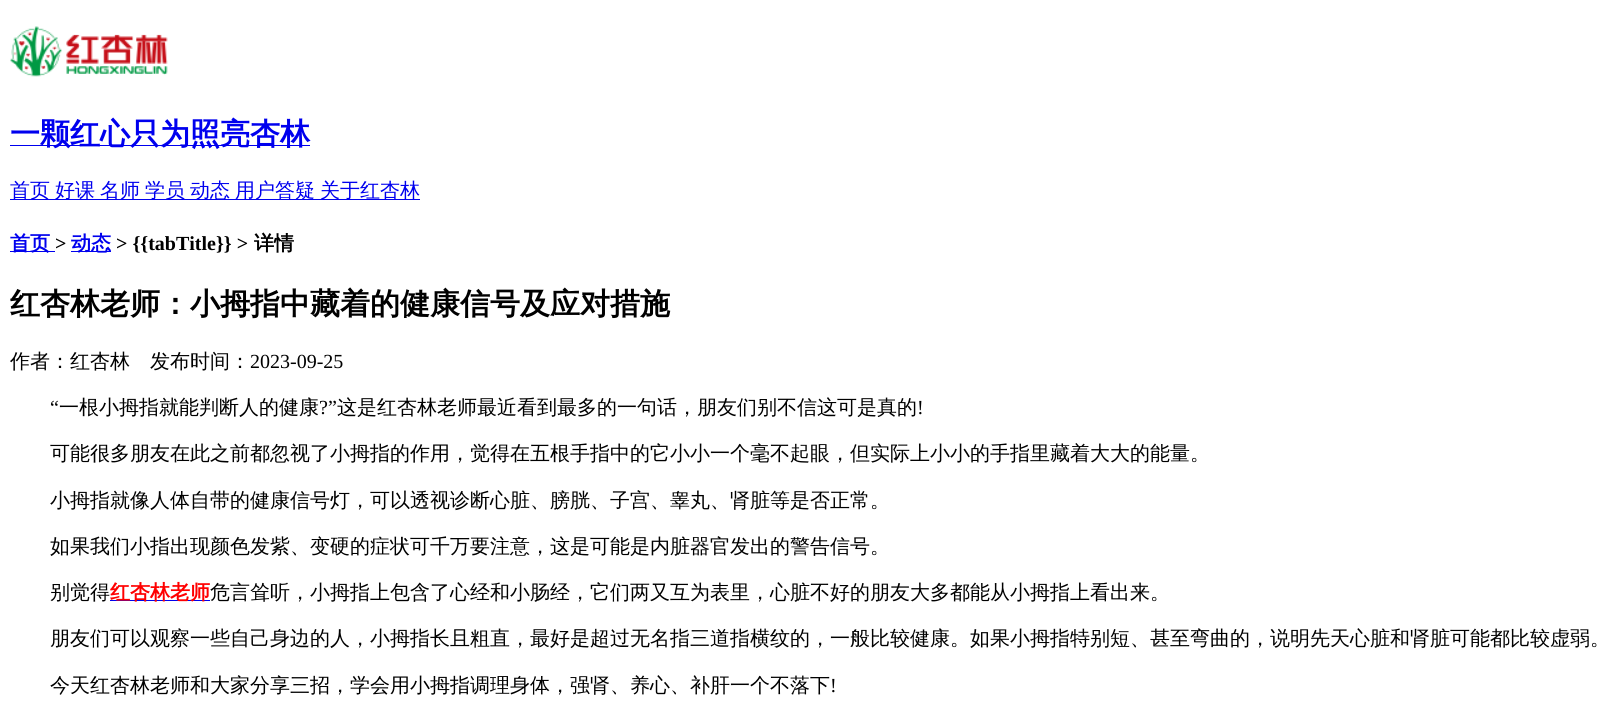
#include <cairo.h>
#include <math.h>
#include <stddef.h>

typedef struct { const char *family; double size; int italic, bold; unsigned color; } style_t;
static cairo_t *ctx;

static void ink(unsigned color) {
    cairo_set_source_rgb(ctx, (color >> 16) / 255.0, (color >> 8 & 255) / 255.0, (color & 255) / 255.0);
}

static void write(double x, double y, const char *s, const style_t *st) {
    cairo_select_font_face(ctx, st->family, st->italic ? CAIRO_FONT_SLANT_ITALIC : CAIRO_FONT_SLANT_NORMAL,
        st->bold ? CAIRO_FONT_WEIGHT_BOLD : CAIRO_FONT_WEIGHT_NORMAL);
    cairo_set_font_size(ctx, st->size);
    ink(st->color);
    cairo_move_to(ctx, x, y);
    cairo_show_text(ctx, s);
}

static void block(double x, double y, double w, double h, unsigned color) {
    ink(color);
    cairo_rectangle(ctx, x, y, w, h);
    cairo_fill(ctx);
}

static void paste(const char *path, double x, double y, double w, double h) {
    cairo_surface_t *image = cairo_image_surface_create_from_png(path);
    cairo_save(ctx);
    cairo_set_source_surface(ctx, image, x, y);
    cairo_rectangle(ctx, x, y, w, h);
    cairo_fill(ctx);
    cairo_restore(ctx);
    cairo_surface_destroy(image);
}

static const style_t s1 = {"WenQuanYi Zen Hei", 30, 0, 1, 0x0000ee};
static const style_t s2 = {"WenQuanYi Zen Hei Medium", 20, 0, 0, 0x0000ee};
static const style_t s3 = {"WenQuanYi Zen Hei", 20, 0, 1, 0x0000ee};
static const style_t s4 = {"Liberation Serif", 20, 0, 1, 0x000000};
static const style_t s5 = {"WenQuanYi Zen Hei", 20, 0, 1, 0x000000};
static const style_t s6 = {"WenQuanYi Zen Hei", 30, 0, 1, 0x000000};
static const style_t s7 = {"WenQuanYi Zen Hei Medium", 20, 0, 0, 0x000000};
static const style_t s8 = {"Liberation Serif", 20, 0, 0, 0x000000};
static const style_t s9 = {"WenQuanYi Zen Hei", 20, 0, 1, 0xff0000};

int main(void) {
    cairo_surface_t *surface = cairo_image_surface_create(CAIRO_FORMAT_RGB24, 1619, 715);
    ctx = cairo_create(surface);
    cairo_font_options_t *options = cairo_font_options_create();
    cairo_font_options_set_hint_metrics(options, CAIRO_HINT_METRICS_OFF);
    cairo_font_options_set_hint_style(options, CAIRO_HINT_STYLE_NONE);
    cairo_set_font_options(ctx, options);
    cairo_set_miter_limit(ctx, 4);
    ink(0xffffff);
    cairo_paint(ctx);
    paste("pic1.png", 10, 26, 158, 51);
    block(10, 145, 300, 1, 0x0000ee);
    write(10, 144, "一颗红心只为照亮杏林", &s1);
    block(10, 199, 410, 1, 0x0000ee);
    write(10, 197, "首页", &s2);
    write(55, 197, "好课", &s2);
    write(100, 197, "名师", &s2);
    write(145, 197, "学员", &s2);
    write(190, 197, "动态", &s2);
    write(235, 197, "用户答疑", &s2);
    write(320, 197, "关于红杏林", &s2);
    block(10, 251, 45, 1, 0x0000ee);
    write(10, 250, "首页", &s3);
    write(55, 250, ">", &s4);
    block(71, 251, 40, 1, 0x0000ee);
    write(71, 250, "动态", &s3);
    write(116, 250, "> {{tabTitle}} >", &s4);
    write(254, 250, "详情", &s5);
    write(10, 314, "红杏林老师：小拇指中藏着的健康信号及应对措施", &s6);
    write(10, 368, "作者：红杏林", &s7);
    write(150, 368, "发布时间：", &s7);
    write(250, 368, "2023-09-25", &s8);
    write(50, 414, "“", &s8);
    write(59, 414, "一根小拇指就能判断人的健康", &s7);
    write(319, 414, "?”", &s8);
    write(337, 414, "这是红杏林老师最近看到最多的一句话，朋友们别不信这可是真的", &s7);
    write(917, 414, "!", &s8);
    write(50, 460, "可能很多朋友在此之前都忽视了小拇指的作用，觉得在五根手指中的它小小一个毫不起眼，但实际上小小的手指里藏着大大的能量。", &s7);
    write(50, 507, "小拇指就像人体自带的健康信号灯，可以透视诊断心脏、膀胱、子宫、睾丸、肾脏等是否正常。", &s7);
    write(50, 553, "如果我们小指出现颜色发紫、变硬的症状可千万要注意，这是可能是内脏器官发出的警告信号。", &s7);
    write(50, 599, "别觉得", &s7);
    block(110, 600, 100, 1, 0x0000ee);
    write(110, 599, "红杏林老师", &s9);
    write(210, 599, "危言耸听，小拇指上包含了心经和小肠经，它们两又互为表里，心脏不好的朋友大多都能从小拇指上看出来。", &s7);
    write(50, 645, "朋友们可以观察一些自己身边的人，小拇指长且粗直，最好是超过无名指三道指横纹的，一般比较健康。如果小拇指特别短、甚至弯曲的，说明先天心脏和肾脏可能都比较虚弱。", &s7);
    write(50, 692, "今天红杏林老师和大家分享三招，学会用小拇指调理身体，强肾、养心、补肝一个不落下", &s7);
    write(830, 692, "!", &s8);
    cairo_surface_write_to_png(surface, "screenshot.png");
    cairo_font_options_destroy(options);
    cairo_destroy(ctx);
    cairo_surface_destroy(surface);
    return 0;
}
